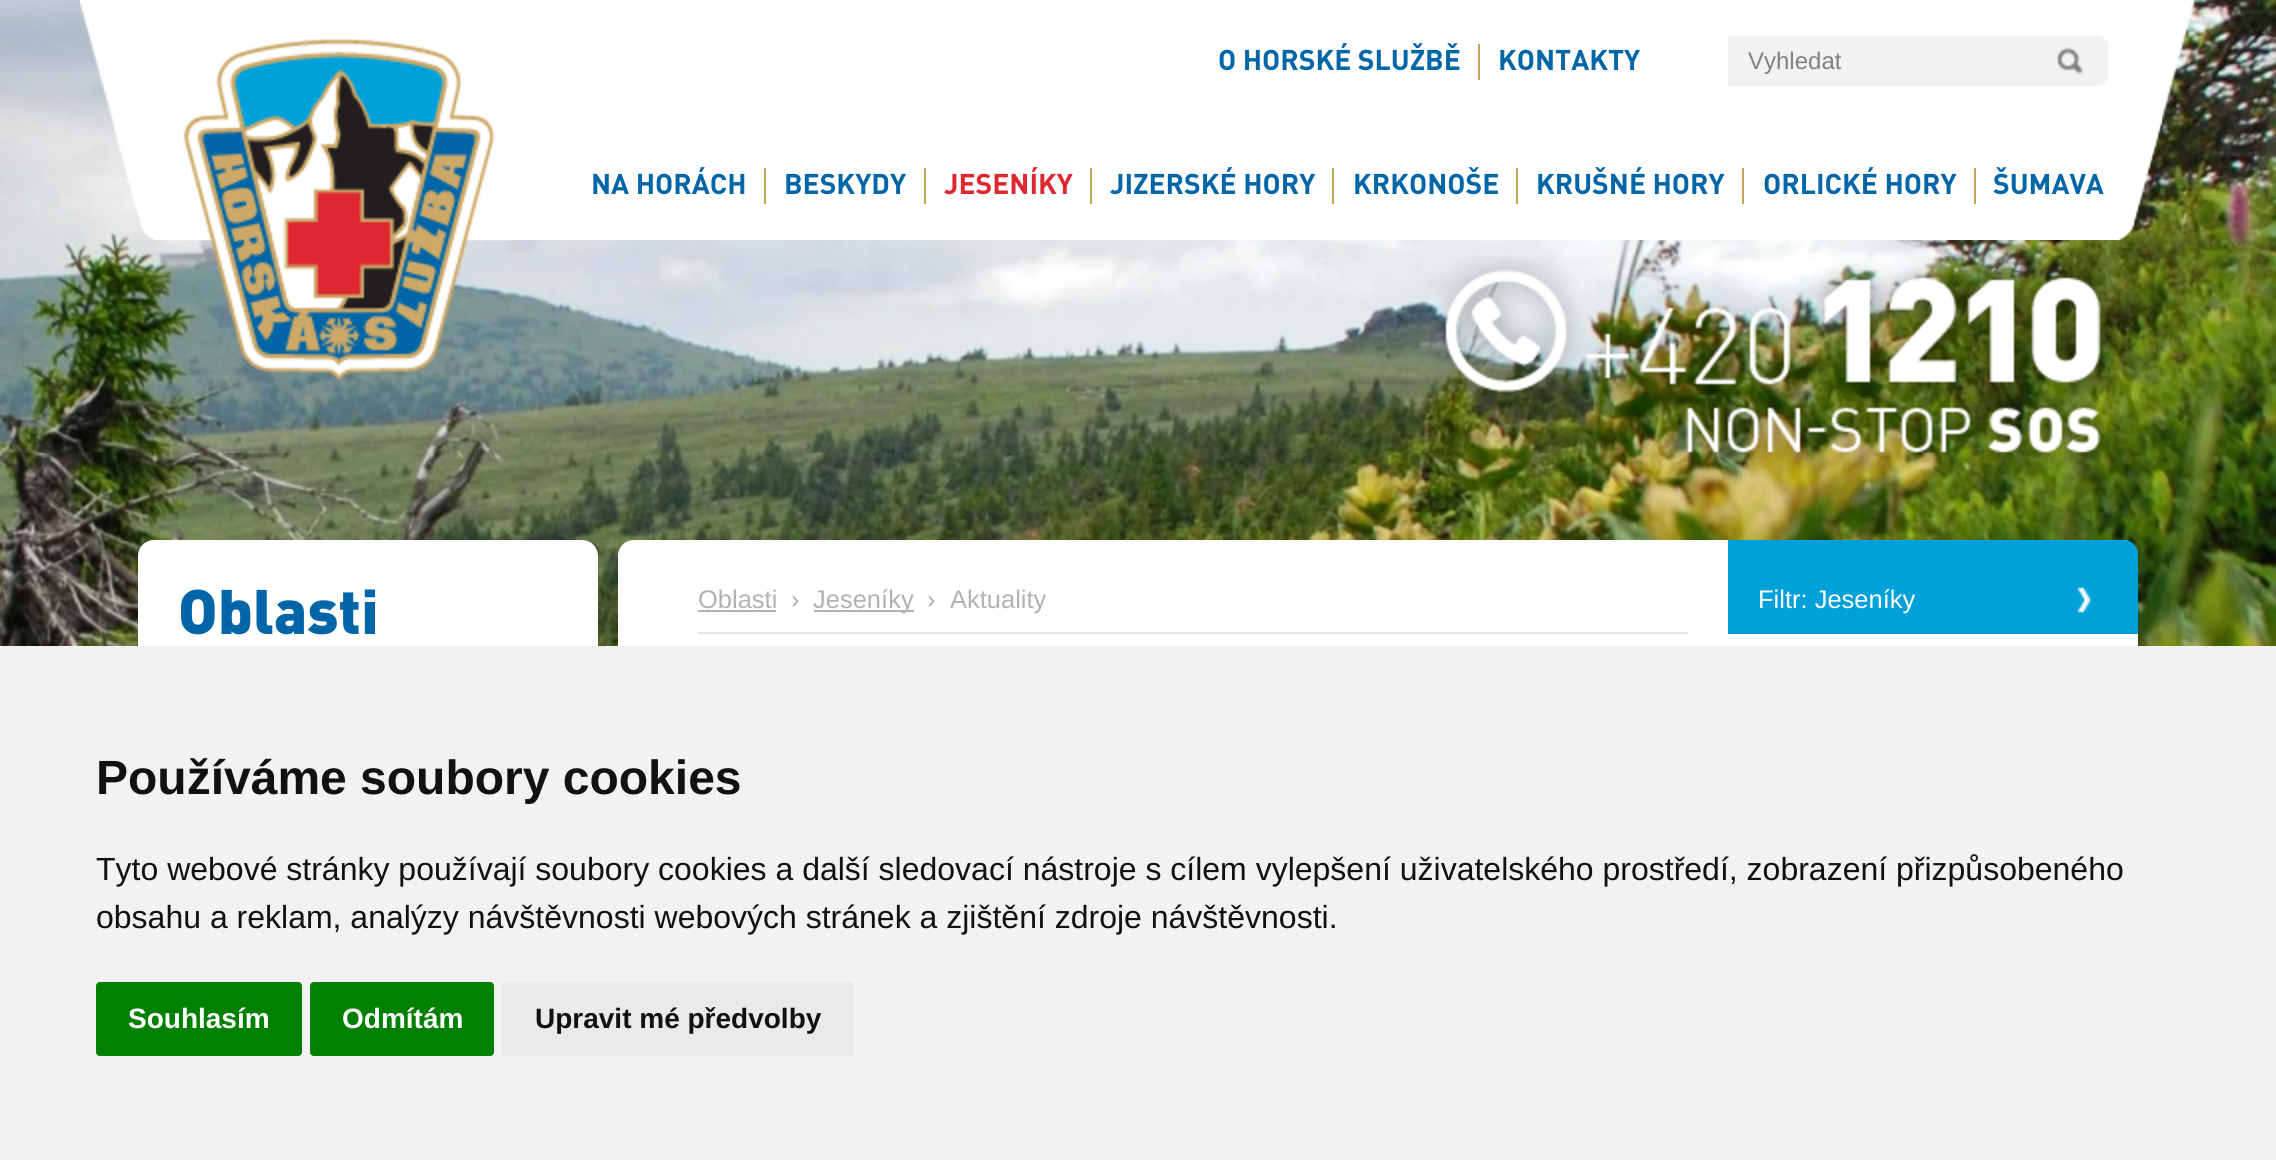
#include <cairo.h>
#include <math.h>
#include <stddef.h>

typedef struct { const char *family; double size; int italic, bold; unsigned color; } style_t;
static cairo_t *ctx;

static void ink(unsigned color) {
    cairo_set_source_rgb(ctx, (color >> 16) / 255.0, (color >> 8 & 255) / 255.0, (color & 255) / 255.0);
}

static void write(double x, double y, const char *s, const style_t *st) {
    cairo_select_font_face(ctx, st->family, st->italic ? CAIRO_FONT_SLANT_ITALIC : CAIRO_FONT_SLANT_NORMAL,
        st->bold ? CAIRO_FONT_WEIGHT_BOLD : CAIRO_FONT_WEIGHT_NORMAL);
    cairo_set_font_size(ctx, st->size);
    ink(st->color);
    cairo_move_to(ctx, x, y);
    cairo_show_text(ctx, s);
}

static void block(double x, double y, double w, double h, unsigned color) {
    ink(color);
    cairo_rectangle(ctx, x, y, w, h);
    cairo_fill(ctx);
}

static void round_path(double x, double y, double w, double h, double r) {
    cairo_new_sub_path(ctx);
    cairo_arc(ctx, x + w - r, y + h - r, r, 0, M_PI / 2);
    cairo_arc(ctx, x + r, y + h - r, r, M_PI / 2, M_PI);
    cairo_arc(ctx, x + r, y + r, r, M_PI, 1.5 * M_PI);
    cairo_arc(ctx, x + w - r, y + r, r, 1.5 * M_PI, 2 * M_PI);
    cairo_close_path(ctx);
}

static void paste(const char *path, double x, double y, double w, double h) {
    cairo_surface_t *image = cairo_image_surface_create_from_png(path);
    cairo_save(ctx);
    cairo_set_source_surface(ctx, image, x, y);
    cairo_rectangle(ctx, x, y, w, h);
    cairo_fill(ctx);
    cairo_restore(ctx);
    cairo_surface_destroy(image);
}

static const style_t s1 = {"DIN", 28.25, 0, 1, 0x0066a7};
static const style_t s2 = {"Liberation Sans", 24, 0, 0, 0x808080};
static const style_t s3 = {"DIN", 28.25, 0, 1, 0xde2730};
static const style_t s4 = {"DIN Black", 62, 0, 0, 0x0066a7};
static const style_t s5 = {"Liberation Sans", 25.5, 0, 0, 0xb2b2b2};
static const style_t s6 = {"Liberation Sans", 25.5, 0, 0, 0xffffff};
static const style_t s7 = {"Liberation Sans", 48, 0, 1, 0x111111};
static const style_t s8 = {"Liberation Sans", 32, 0, 0, 0x111111};
static const style_t s9 = {"Liberation Sans", 28, 0, 1, 0xffffff};
static const style_t s10 = {"Liberation Sans", 28, 0, 1, 0x111111};

int main(void) {
    cairo_surface_t *surface = cairo_image_surface_create(CAIRO_FORMAT_RGB24, 2276, 1160);
    ctx = cairo_create(surface);
    cairo_font_options_t *options = cairo_font_options_create();
    cairo_font_options_set_hint_metrics(options, CAIRO_HINT_METRICS_OFF);
    cairo_font_options_set_hint_style(options, CAIRO_HINT_STYLE_NONE);
    cairo_set_font_options(ctx, options);
    cairo_set_miter_limit(ctx, 4);
    ink(0xffffff);
    cairo_paint(ctx);
    paste("pic1.png", 0, 0, 2276, 646);
    paste("pic2.png", 80, 0, 2116, 240);
    paste("pic3.png", 114, 113, 2048, 127);
    paste("pic4.png", 164, 39, 350, 342);
    block(1478, 44, 2, 36, 0xc7a660);
    write(1218, 70, "O HORSKÉ SLUŽBĚ", &s1);
    write(1498, 70, "KONTAKTY", &s1);
    block(1728, 36, 320, 50, 0xf2f2f2);
    write(1748, 69, "Vyhledat", &s2);
    paste("pic5.png", 2048, 36, 60, 50);
    block(764, 168, 2, 36, 0xc7a660);
    write(591, 194, "NA HORÁCH", &s1);
    block(924, 168, 2, 36, 0xc7a660);
    write(784, 194, "BESKYDY", &s1);
    block(1090, 168, 2, 36, 0xc7a660);
    write(944, 194, "JESENÍKY", &s3);
    block(1332, 168, 2, 36, 0xc7a660);
    write(1110, 194, "JIZERSKÉ HORY", &s1);
    block(1516, 168, 2, 36, 0xc7a660);
    write(1353, 194, "KRKONOŠE", &s1);
    block(1742, 168, 2, 36, 0xc7a660);
    write(1536, 194, "KRUŠNÉ HORY", &s1);
    block(1974, 168, 2, 36, 0xc7a660);
    write(1763, 194, "ORLICKÉ HORY", &s1);
    write(1993, 194, "ŠUMAVA", &s1);
    paste("pic6.png", 1435, 256, 685, 214);
    ink(0xffffff);
    round_path(138, 540, 460, 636, 16);
    cairo_fill(ctx);
    write(178, 634, "Oblasti", &s4);
    ink(0xffffff);
    cairo_new_path(ctx);
    cairo_move_to(ctx, 634, 540);
    cairo_line_to(ctx, 2122, 540);
    cairo_curve_to(ctx, 2131, 540, 2138, 547, 2138, 556);
    cairo_line_to(ctx, 2138, 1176);
    cairo_line_to(ctx, 618, 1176);
    cairo_line_to(ctx, 618, 556);
    cairo_curve_to(ctx, 618, 547, 625, 540, 634, 540);
    cairo_close_path(ctx);
    cairo_fill(ctx);
    block(698, 632, 990, 2, 0xe5e5e5);
    write(698, 608, "Oblasti", &s5);
    block(698, 610, 78, 2, 0xb2b2b2);
    write(791, 608, "›", &s5);
    block(814, 610, 100, 2, 0xb2b2b2);
    write(813, 608, "Jeseníky", &s5);
    write(927, 608, "›", &s5);
    write(950, 608, "Aktuality", &s5);
    ink(0x00a1da);
    cairo_new_path(ctx);
    cairo_move_to(ctx, 1728, 540);
    cairo_line_to(ctx, 2124, 540);
    cairo_curve_to(ctx, 2131.5, 540, 2138, 546.5, 2138, 554);
    cairo_line_to(ctx, 2138, 636);
    cairo_line_to(ctx, 1728, 636);
    cairo_close_path(ctx);
    cairo_fill(ctx);
    paste("pic7.png", 2078, 587, 14, 26);
    block(1728, 634, 410, 2, 0xffffff);
    write(1758, 608, "Filtr: Jeseníky", &s6);
    block(0, 646, 2276, 514, 0xf2f2f2);
    write(96, 794, "Používáme soubory cookies", &s7);
    write(96, 880, "Tyto webové stránky používají soubory cookies a další sledovací nástroje s cílem vylepšení uživatelského prostředí, zobrazení přizpůsobeného", &s8);
    write(96, 928, "obsahu a reklam, analýzy návštěvnosti webových stránek a zjištění zdroje návštěvnosti.", &s8);
    ink(0x008000);
    round_path(96, 982, 206, 74, 4);
    cairo_fill(ctx);
    write(128, 1028, "Souhlasím", &s9);
    ink(0x008000);
    round_path(310, 982, 184, 74, 4);
    cairo_fill(ctx);
    write(342, 1028, "Odmítám", &s9);
    ink(0xeaeaea);
    round_path(502, 982, 352, 74, 4);
    cairo_fill(ctx);
    write(535, 1028, "Upravit mé předvolby", &s10);
    cairo_surface_write_to_png(surface, "screenshot.png");
    cairo_font_options_destroy(options);
    cairo_destroy(ctx);
    cairo_surface_destroy(surface);
    return 0;
}
